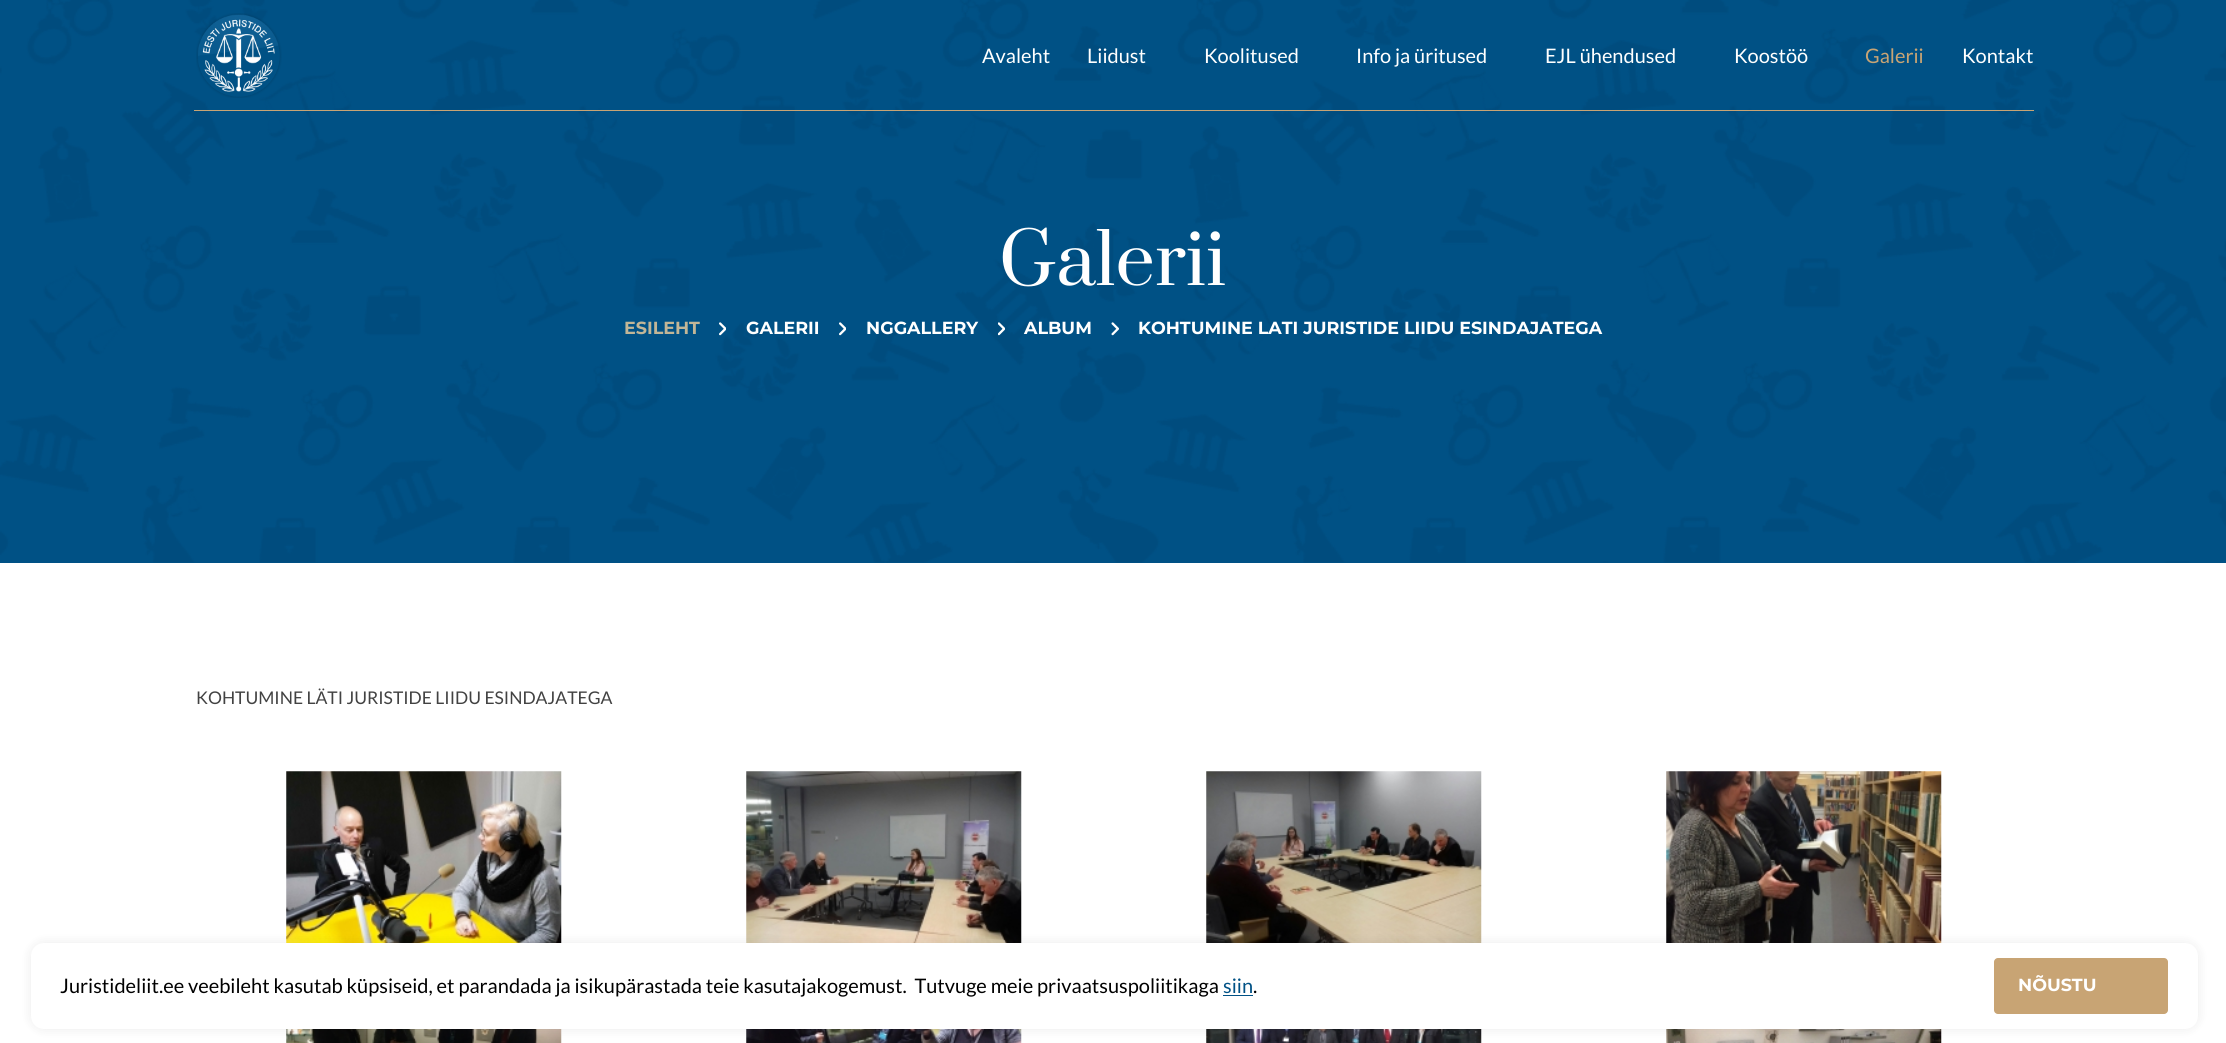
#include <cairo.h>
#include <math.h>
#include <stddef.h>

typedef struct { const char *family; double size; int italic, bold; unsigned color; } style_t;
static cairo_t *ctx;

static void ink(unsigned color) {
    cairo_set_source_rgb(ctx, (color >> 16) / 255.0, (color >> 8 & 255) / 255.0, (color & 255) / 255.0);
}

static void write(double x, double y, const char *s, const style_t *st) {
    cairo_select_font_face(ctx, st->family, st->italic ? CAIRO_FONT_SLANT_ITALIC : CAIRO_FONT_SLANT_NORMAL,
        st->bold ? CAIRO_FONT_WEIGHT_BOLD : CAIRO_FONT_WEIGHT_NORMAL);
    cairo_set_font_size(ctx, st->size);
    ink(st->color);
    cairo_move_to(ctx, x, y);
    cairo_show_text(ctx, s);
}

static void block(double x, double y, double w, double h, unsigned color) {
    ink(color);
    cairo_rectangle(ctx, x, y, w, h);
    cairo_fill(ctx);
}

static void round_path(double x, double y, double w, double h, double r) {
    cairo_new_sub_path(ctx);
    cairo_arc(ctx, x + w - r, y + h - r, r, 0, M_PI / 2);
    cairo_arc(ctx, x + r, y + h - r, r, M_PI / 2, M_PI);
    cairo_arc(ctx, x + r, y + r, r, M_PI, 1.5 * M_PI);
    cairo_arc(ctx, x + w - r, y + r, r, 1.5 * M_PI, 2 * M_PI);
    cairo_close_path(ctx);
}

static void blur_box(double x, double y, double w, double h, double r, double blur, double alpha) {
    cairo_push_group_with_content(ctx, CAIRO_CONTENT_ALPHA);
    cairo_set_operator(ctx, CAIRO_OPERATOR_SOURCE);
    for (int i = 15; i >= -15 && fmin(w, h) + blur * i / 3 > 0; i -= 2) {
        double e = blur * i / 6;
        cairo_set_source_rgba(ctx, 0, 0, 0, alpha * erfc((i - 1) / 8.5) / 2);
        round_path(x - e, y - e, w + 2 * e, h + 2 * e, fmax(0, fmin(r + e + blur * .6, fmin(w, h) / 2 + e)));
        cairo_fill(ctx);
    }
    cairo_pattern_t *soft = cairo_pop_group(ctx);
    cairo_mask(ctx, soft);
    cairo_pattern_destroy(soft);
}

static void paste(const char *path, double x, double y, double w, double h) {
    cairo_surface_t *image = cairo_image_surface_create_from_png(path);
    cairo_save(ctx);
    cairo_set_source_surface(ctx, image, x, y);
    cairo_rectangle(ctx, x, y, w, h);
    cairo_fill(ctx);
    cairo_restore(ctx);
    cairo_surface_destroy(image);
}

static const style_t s1 = {"Lato", 20, 0, 0, 0xffffff};
static const style_t s2 = {"Lato", 20, 0, 0, 0xc8a474};
static const style_t s3 = {"Prata", 70, 0, 0, 0xffffff};
static const style_t s4 = {"Montserrat", 17.5, 0, 1, 0xc2b697};
static const style_t s5 = {"Montserrat", 17.5, 0, 1, 0xffffff};
static const style_t s6 = {"Lato", 17.5, 0, 0, 0x424242};
static const style_t s7 = {"Lato", 20, 0, 0, 0x000000};
static const style_t s8 = {"Lato", 20, 0, 0, 0x005185};

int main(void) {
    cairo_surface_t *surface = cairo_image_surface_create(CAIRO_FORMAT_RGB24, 2226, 1043);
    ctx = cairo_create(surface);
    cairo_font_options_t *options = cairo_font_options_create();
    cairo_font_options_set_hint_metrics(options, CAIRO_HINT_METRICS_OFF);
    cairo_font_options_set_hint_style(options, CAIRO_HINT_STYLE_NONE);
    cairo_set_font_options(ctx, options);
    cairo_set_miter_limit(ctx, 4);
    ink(0xffffff);
    cairo_paint(ctx);
    block(0, 0, 2226, 563, 0x005185);
    paste("pic2.png", 0, 0, 2226, 563);
    block(194, 110, 1840, 1, 0xc8a474);
    paste("pic1.png", 196, 13, 86, 85);
    write(982, 63, "Avaleht", &s1);
    write(1087, 63, "Liidust", &s1);
    write(1204, 63, "Koolitused", &s1);
    write(1356, 63, "Info ja üritused", &s1);
    write(1545, 63, "EJL ühendused", &s1);
    write(1734, 63, "Koostöö", &s1);
    write(1865, 63, "Galerii", &s2);
    write(1962, 63, "Kontakt", &s1);
    write(999, 285, "Galerii", &s3);
    write(624, 334, "ESILEHT", &s4);
    paste("pic3.png", 719, 322, 7, 14);
    write(746, 334, "GALERII", &s5);
    paste("pic4.png", 839, 322, 7, 14);
    write(866, 334, "NGGALLERY", &s5);
    paste("pic5.png", 998, 322, 7, 14);
    write(1024, 334, "ALBUM", &s5);
    paste("pic6.png", 1111, 322, 8, 14);
    write(1138, 334, "KOHTUMINE LATI JURISTIDE LIIDU ESINDAJATEGA", &s5);
    write(196, 704, "KOHTUMINE LÄTI JURISTIDE LIIDU ESINDAJATEGA", &s6);
    paste("pic7.png", 286, 771, 276, 172);
    paste("pic8.png", 746, 771, 276, 172);
    paste("pic9.png", 1206, 771, 276, 172);
    paste("pic10.png", 1666, 771, 276, 172);
    paste("pic11.png", 286, 1029, 276, 14);
    paste("pic12.png", 746, 1029, 276, 14);
    paste("pic13.png", 1206, 1029, 276, 14);
    paste("pic14.png", 1666, 1029, 276, 14);
    ink(0x000000);
    blur_box(31, 943, 2167, 86, 13, 6, 0.08);
    ink(0xffffff);
    round_path(31, 943, 2167, 86, 13);
    cairo_fill(ctx);
    write(60, 993, "Juristideliit.ee veebileht kasutab küpsiseid, et parandada ja isikupärastada teie kasutajakogemust.  Tutvuge meie privaatsuspoliitikaga", &s7);
    write(1223, 993, "siin", &s8);
    block(1223, 995, 30, 1, 0x005185);
    write(1253, 993, ".", &s7);
    ink(0xc8a474);
    round_path(1994, 958, 174, 56, 4);
    cairo_fill(ctx);
    write(2018, 991, "NÕUSTU", &s5);
    cairo_surface_write_to_png(surface, "screenshot.png");
    cairo_font_options_destroy(options);
    cairo_destroy(ctx);
    cairo_surface_destroy(surface);
    return 0;
}
